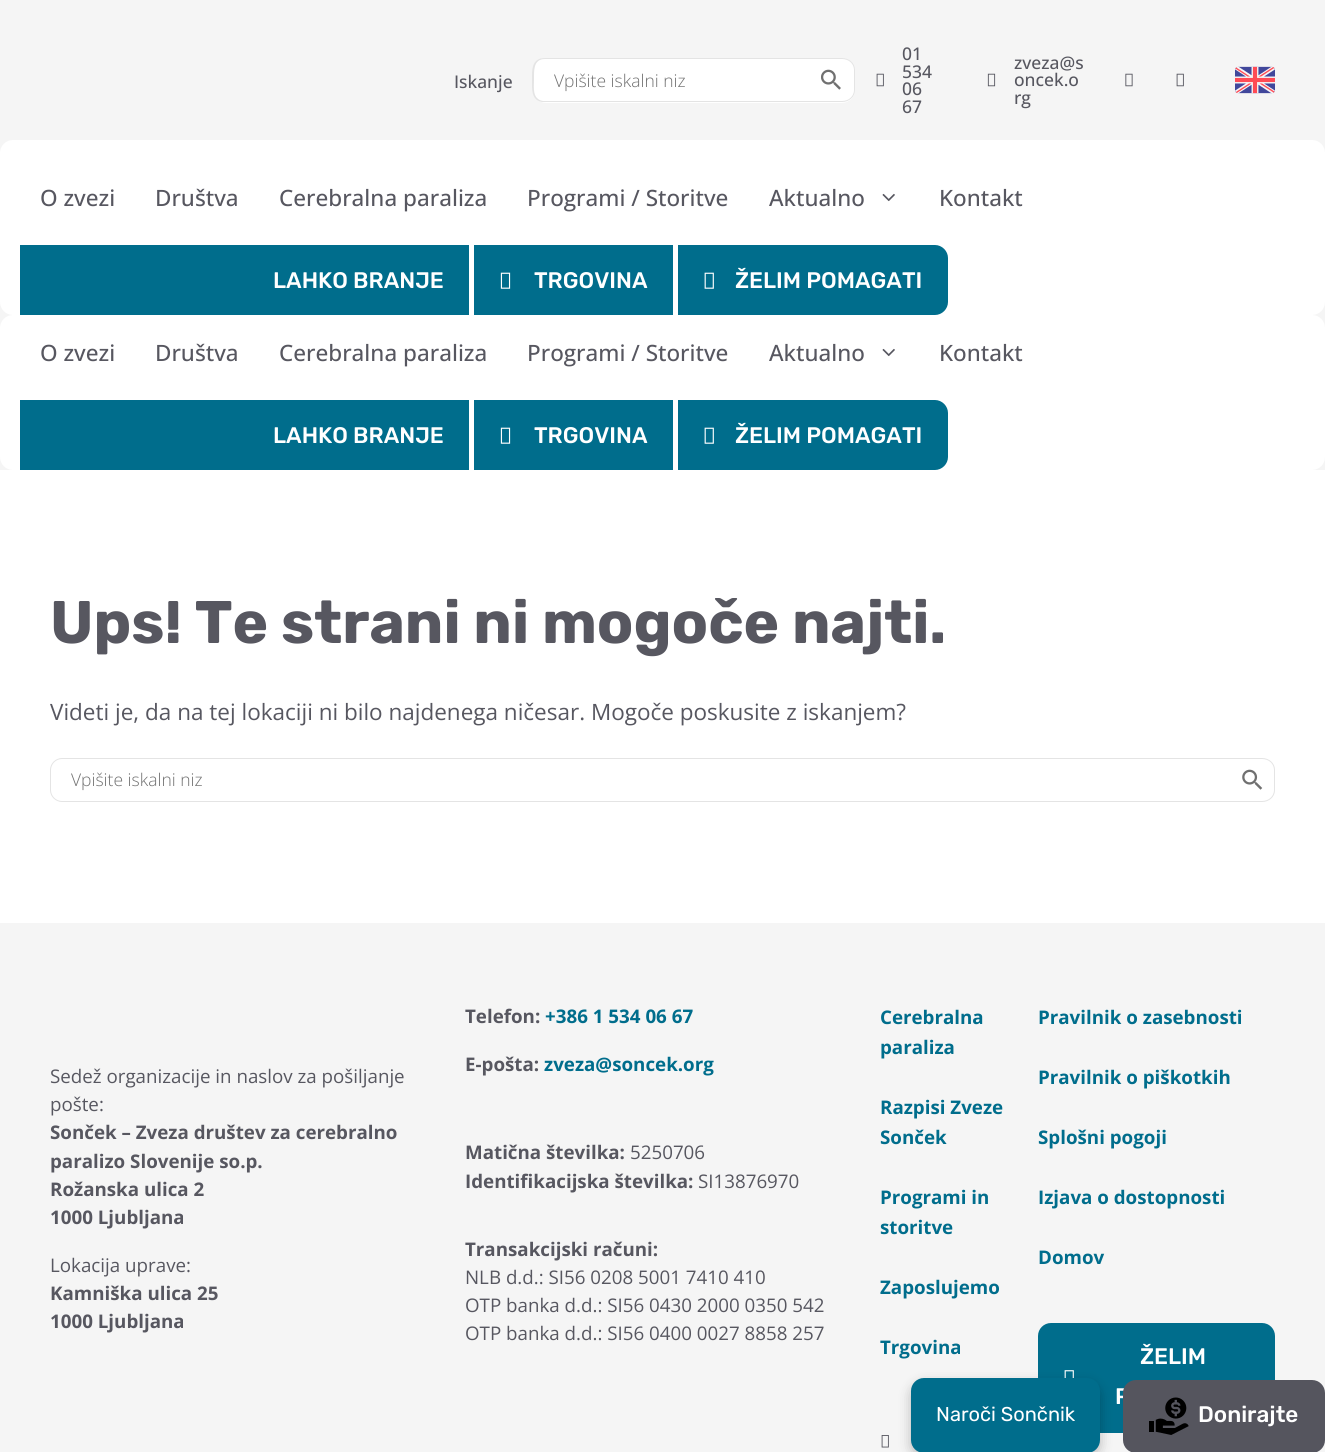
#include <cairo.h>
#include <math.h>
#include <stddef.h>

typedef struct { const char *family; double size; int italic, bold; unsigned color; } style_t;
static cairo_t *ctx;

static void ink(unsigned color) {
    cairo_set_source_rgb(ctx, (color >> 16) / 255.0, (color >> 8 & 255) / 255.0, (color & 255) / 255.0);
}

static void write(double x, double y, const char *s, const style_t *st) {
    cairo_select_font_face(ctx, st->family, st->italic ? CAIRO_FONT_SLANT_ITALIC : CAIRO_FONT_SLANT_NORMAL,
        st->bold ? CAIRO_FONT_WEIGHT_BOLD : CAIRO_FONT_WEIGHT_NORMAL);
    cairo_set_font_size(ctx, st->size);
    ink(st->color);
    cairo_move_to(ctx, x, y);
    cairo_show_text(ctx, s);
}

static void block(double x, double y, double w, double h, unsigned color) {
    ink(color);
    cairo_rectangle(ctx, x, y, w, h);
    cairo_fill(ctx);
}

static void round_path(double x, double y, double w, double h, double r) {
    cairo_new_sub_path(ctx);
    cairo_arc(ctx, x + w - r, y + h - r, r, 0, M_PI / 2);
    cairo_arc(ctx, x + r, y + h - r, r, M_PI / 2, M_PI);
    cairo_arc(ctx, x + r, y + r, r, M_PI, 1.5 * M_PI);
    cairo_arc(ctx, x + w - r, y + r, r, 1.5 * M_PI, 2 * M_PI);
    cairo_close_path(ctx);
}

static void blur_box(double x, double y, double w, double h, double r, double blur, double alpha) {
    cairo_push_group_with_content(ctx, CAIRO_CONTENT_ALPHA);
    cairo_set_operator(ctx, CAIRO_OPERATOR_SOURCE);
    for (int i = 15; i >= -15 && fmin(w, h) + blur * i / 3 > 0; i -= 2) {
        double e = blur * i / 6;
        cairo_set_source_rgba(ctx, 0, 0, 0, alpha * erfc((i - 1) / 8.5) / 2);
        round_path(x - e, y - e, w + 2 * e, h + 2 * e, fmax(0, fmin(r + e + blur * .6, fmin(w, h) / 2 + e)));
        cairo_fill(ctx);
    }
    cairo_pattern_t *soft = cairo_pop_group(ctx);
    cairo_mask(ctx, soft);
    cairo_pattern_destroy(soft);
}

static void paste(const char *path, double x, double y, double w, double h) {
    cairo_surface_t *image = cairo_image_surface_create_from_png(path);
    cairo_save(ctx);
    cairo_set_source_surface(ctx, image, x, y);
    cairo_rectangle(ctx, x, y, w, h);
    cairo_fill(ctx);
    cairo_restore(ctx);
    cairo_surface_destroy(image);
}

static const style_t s1 = {"Open Sans Medium", 17.5, 0, 0, 0x575760};
static const style_t s2 = {"Open Sans Light", 17.5, 0, 0, 0x707070};
static const style_t s3 = {"Open Sans Medium", 22.5, 0, 0, 0x575760};
static const style_t s4 = {"Rubik Medium", 22.5, 0, 0, 0xffffff};
static const style_t s5 = {"Rubik", 60, 0, 1, 0x575760};
static const style_t s6 = {"Open Sans", 22.5, 0, 0, 0x575760};
static const style_t s7 = {"Open Sans", 18.75, 0, 0, 0x575760};
static const style_t s8 = {"Open Sans", 18.75, 0, 1, 0x575760};
static const style_t s9 = {"Open Sans", 18.75, 0, 1, 0x006d8c};
static const style_t s10 = {"Rubik", 20, 0, 0, 0xffffff};

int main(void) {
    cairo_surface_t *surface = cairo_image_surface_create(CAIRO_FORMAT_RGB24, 1325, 1452);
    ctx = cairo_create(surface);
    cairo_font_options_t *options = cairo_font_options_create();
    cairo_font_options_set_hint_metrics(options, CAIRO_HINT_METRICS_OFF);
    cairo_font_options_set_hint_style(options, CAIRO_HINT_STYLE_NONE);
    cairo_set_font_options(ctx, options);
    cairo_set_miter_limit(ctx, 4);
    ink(0xffffff);
    cairo_paint(ctx);
    block(0, 0, 1325, 470, 0xf5f5f5);
    write(454, 88, "Iskanje", &s1);
    ink(0xffffff);
    cairo_new_path(ctx);
    cairo_move_to(ctx, 546, 58);
    cairo_line_to(ctx, 810, 58);
    cairo_line_to(ctx, 810, 103);
    cairo_line_to(ctx, 546, 103);
    cairo_curve_to(ctx, 539, 103, 533, 97, 533, 90);
    cairo_line_to(ctx, 533, 71);
    cairo_curve_to(ctx, 533, 64, 539, 58, 546, 58);
    cairo_close_path(ctx);
    cairo_fill(ctx);
    ink(0xe4e4e4);
    cairo_set_fill_rule(ctx, CAIRO_FILL_RULE_EVEN_ODD);
    cairo_new_path(ctx);
    cairo_move_to(ctx, 545, 58);
    cairo_line_to(ctx, 810, 58);
    cairo_line_to(ctx, 810, 102);
    cairo_line_to(ctx, 542, 102);
    cairo_curve_to(ctx, 531, 100, 532, 89, 532, 80);
    cairo_curve_to(ctx, 532, 71, 531, 58, 545, 58);
    cairo_close_path(ctx);
    cairo_move_to(ctx, 545, 59);
    cairo_line_to(ctx, 810, 59);
    cairo_line_to(ctx, 810, 101);
    cairo_line_to(ctx, 543, 101);
    cairo_curve_to(ctx, 532, 99, 534, 88, 534, 80);
    cairo_curve_to(ctx, 534, 71, 533, 59, 545, 59);
    cairo_close_path(ctx);
    cairo_fill(ctx);
    write(554, 87, "Vpišite iskalni niz", &s2);
    ink(0xffffff);
    cairo_new_path(ctx);
    cairo_move_to(ctx, 810, 58);
    cairo_line_to(ctx, 842, 58);
    cairo_curve_to(ctx, 849, 58, 855, 64, 855, 71);
    cairo_line_to(ctx, 855, 90);
    cairo_curve_to(ctx, 855, 97, 849, 103, 842, 103);
    cairo_line_to(ctx, 810, 103);
    cairo_close_path(ctx);
    cairo_fill(ctx);
    ink(0xe4e4e4);
    cairo_new_path(ctx);
    cairo_move_to(ctx, 810, 58);
    cairo_line_to(ctx, 842, 58);
    cairo_curve_to(ctx, 849, 58, 855, 63, 855, 70);
    cairo_line_to(ctx, 855, 90);
    cairo_curve_to(ctx, 855, 97, 849, 102, 842, 102);
    cairo_line_to(ctx, 810, 102);
    cairo_close_path(ctx);
    cairo_move_to(ctx, 810, 59);
    cairo_line_to(ctx, 842, 59);
    cairo_curve_to(ctx, 849, 59, 854, 64, 854, 70);
    cairo_line_to(ctx, 854, 90);
    cairo_curve_to(ctx, 854, 96, 849, 101, 842, 101);
    cairo_line_to(ctx, 810, 101);
    cairo_close_path(ctx);
    cairo_fill(ctx);
    paste("pic1.png", 821, 69, 20, 21);
    write(902, 60, "01", &s1);
    paste("pic2.png", 876, 73, 8, 14);
    write(902, 78, "534", &s1);
    write(902, 95, "06", &s1);
    write(902, 113, "67", &s1);
    write(1014, 69, "zveza@s", &s1);
    paste("pic3.png", 987, 73, 9, 14);
    write(1014, 86, "oncek.o", &s1);
    write(1014, 104, "rg", &s1);
    paste("pic4.png", 1125, 73, 8, 14);
    paste("pic2.png", 1176, 73, 8, 14);
    paste("pic5.png", 1235, 66, 40, 28);
    ink(0xffffff);
    round_path(0, 140, 1325, 175, 13);
    cairo_fill(ctx);
    write(40, 206, "O zvezi", &s3);
    write(155, 206, "Društva", &s3);
    write(279, 206, "Cerebralna paraliza", &s3);
    write(527, 206, "Programi / Storitve", &s3);
    write(769, 206, "Aktualno", &s3);
    paste("pic6.png", 882, 193, 13, 9);
    write(939, 206, "Kontakt", &s3);
    block(20, 245, 449, 70, 0x006d8c);
    write(273, 288, "LAHKO BRANJE", &s4);
    block(474, 245, 199, 70, 0x006d8c);
    paste("pic7.png", 500, 272, 11, 17);
    write(534, 288, "TRGOVINA", &s4);
    ink(0x006d8c);
    cairo_new_path(ctx);
    cairo_move_to(ctx, 678, 245);
    cairo_line_to(ctx, 935, 245);
    cairo_curve_to(ctx, 942, 245, 948, 251, 948, 258);
    cairo_line_to(ctx, 948, 302);
    cairo_curve_to(ctx, 948, 309, 942, 315, 935, 315);
    cairo_line_to(ctx, 678, 315);
    cairo_close_path(ctx);
    cairo_fill(ctx);
    paste("pic8.png", 704, 272, 10, 17);
    write(735, 288, "ŽELIM POMAGATI", &s4);
    round_path(0, 315, 1325, 155, 13);
    cairo_fill(ctx);
    write(40, 361, "O zvezi", &s3);
    write(155, 361, "Društva", &s3);
    write(279, 361, "Cerebralna paraliza", &s3);
    write(527, 361, "Programi / Storitve", &s3);
    write(769, 361, "Aktualno", &s3);
    paste("pic6.png", 882, 348, 13, 9);
    write(939, 361, "Kontakt", &s3);
    block(20, 400, 449, 70, 0x006d8c);
    write(273, 443, "LAHKO BRANJE", &s4);
    block(474, 400, 199, 70, 0x006d8c);
    paste("pic7.png", 500, 427, 11, 17);
    write(534, 443, "TRGOVINA", &s4);
    ink(0x006d8c);
    cairo_new_path(ctx);
    cairo_move_to(ctx, 678, 400);
    cairo_line_to(ctx, 935, 400);
    cairo_curve_to(ctx, 942, 400, 948, 406, 948, 413);
    cairo_line_to(ctx, 948, 457);
    cairo_curve_to(ctx, 948, 464, 942, 470, 935, 470);
    cairo_line_to(ctx, 678, 470);
    cairo_close_path(ctx);
    cairo_fill(ctx);
    paste("pic8.png", 704, 427, 10, 17);
    write(735, 443, "ŽELIM POMAGATI", &s4);
    write(50, 643, "Ups! Te strani ni mogoče najti.", &s5);
    write(50, 720, "Videti je, da na tej lokaciji ni bilo najdenega ničesar. Mogoče poskusite z iskanjem?", &s6);
    ink(0xe4e4e4);
    cairo_new_path(ctx);
    cairo_move_to(ctx, 62, 758);
    cairo_line_to(ctx, 1230, 758);
    cairo_line_to(ctx, 1230, 802);
    cairo_line_to(ctx, 62, 802);
    cairo_curve_to(ctx, 56, 802, 50, 797, 50, 790);
    cairo_line_to(ctx, 50, 770);
    cairo_curve_to(ctx, 50, 763, 56, 758, 62, 758);
    cairo_close_path(ctx);
    cairo_move_to(ctx, 62, 759);
    cairo_line_to(ctx, 1230, 759);
    cairo_line_to(ctx, 1230, 801);
    cairo_line_to(ctx, 62, 801);
    cairo_curve_to(ctx, 56, 801, 51, 796, 51, 790);
    cairo_line_to(ctx, 51, 770);
    cairo_curve_to(ctx, 51, 764, 56, 759, 62, 759);
    cairo_close_path(ctx);
    cairo_fill(ctx);
    write(71, 786, "Vpišite iskalni niz", &s2);
    ink(0xe4e4e4);
    cairo_new_path(ctx);
    cairo_move_to(ctx, 1230, 758);
    cairo_line_to(ctx, 1262, 758);
    cairo_curve_to(ctx, 1269, 758, 1275, 763, 1275, 770);
    cairo_line_to(ctx, 1275, 790);
    cairo_curve_to(ctx, 1275, 797, 1269, 802, 1262, 802);
    cairo_line_to(ctx, 1230, 802);
    cairo_close_path(ctx);
    cairo_move_to(ctx, 1230, 759);
    cairo_line_to(ctx, 1262, 759);
    cairo_curve_to(ctx, 1269, 759, 1274, 764, 1274, 770);
    cairo_line_to(ctx, 1274, 790);
    cairo_curve_to(ctx, 1274, 796, 1269, 801, 1262, 801);
    cairo_line_to(ctx, 1230, 801);
    cairo_close_path(ctx);
    cairo_fill(ctx);
    paste("pic9.png", 1242, 769, 21, 21);
    block(0, 923, 1325, 529, 0xf5f5f5);
    write(50, 1083, "Sedež organizacije in naslov za pošiljanje", &s7);
    write(50, 1111, "pošte:", &s7);
    write(50, 1139, "Sonček – Zveza društev za cerebralno", &s8);
    write(50, 1168, "paralizo Slovenije so.p.", &s8);
    write(50, 1196, "Rožanska ulica 2", &s8);
    write(50, 1224, "1000 Ljubljana", &s8);
    write(50, 1272, "Lokacija uprave:", &s7);
    write(50, 1300, "Kamniška ulica 25", &s8);
    write(50, 1328, "1000 Ljubljana", &s8);
    write(465, 1023, "Telefon:", &s8);
    write(545, 1023, "+386 1 534 06 67", &s9);
    write(465, 1071, "E-pošta:", &s8);
    write(544, 1071, "zveza@soncek.org", &s9);
    write(465, 1159, "Matična številka:", &s8);
    write(630, 1159, "5250706", &s7);
    write(465, 1188, "Identifikacijska številka:", &s8);
    write(698, 1188, "SI13876970", &s7);
    write(465, 1256, "Transakcijski računi:", &s8);
    write(465, 1284, "NLB d.d.: SI56 0208 5001 7410 410", &s7);
    write(465, 1312, "OTP banka d.d.: SI56 0430 2000 0350 542", &s7);
    write(465, 1340, "OTP banka d.d.: SI56 0400 0027 8858 257", &s7);
    write(880, 1024, "Cerebralna", &s9);
    write(880, 1054, "paraliza", &s9);
    write(880, 1114, "Razpisi Zveze", &s9);
    write(880, 1144, "Sonček", &s9);
    write(880, 1204, "Programi in", &s9);
    write(880, 1234, "storitve", &s9);
    write(880, 1294, "Zaposlujemo", &s9);
    write(880, 1354, "Trgovina", &s9);
    paste("pic10.png", 881, 1435, 8, 13);
    write(1038, 1024, "Pravilnik o zasebnosti", &s9);
    write(1038, 1084, "Pravilnik o piškotkih", &s9);
    write(1038, 1144, "Splošni pogoji", &s9);
    write(1038, 1204, "Izjava o dostopnosti", &s9);
    write(1038, 1264, "Domov", &s9);
    round_path(1038, 1323, 237, 110, 13);
    cairo_fill(ctx);
    write(1140, 1364, "ŽELIM", &s4);
    paste("pic11.png", 1064, 1370, 10, 8);
    write(1115, 1404, "P", &s4);
    ink(0x000000);
    blur_box(911, 1383, 189, 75, 13, 6, 0.25);
    ink(0x006d8c);
    round_path(911, 1378, 189, 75, 13);
    cairo_fill(ctx);
    write(936, 1421, "Naroči Sončnik", &s10);
    ink(0x55555e);
    round_path(1123, 1380, 202, 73, 13);
    cairo_fill(ctx);
    paste("pic12.png", 1149, 1397, 40, 38);
    write(1198, 1422, "Donirajte", &s4);
    cairo_surface_write_to_png(surface, "screenshot.png");
    cairo_font_options_destroy(options);
    cairo_destroy(ctx);
    cairo_surface_destroy(surface);
    return 0;
}
